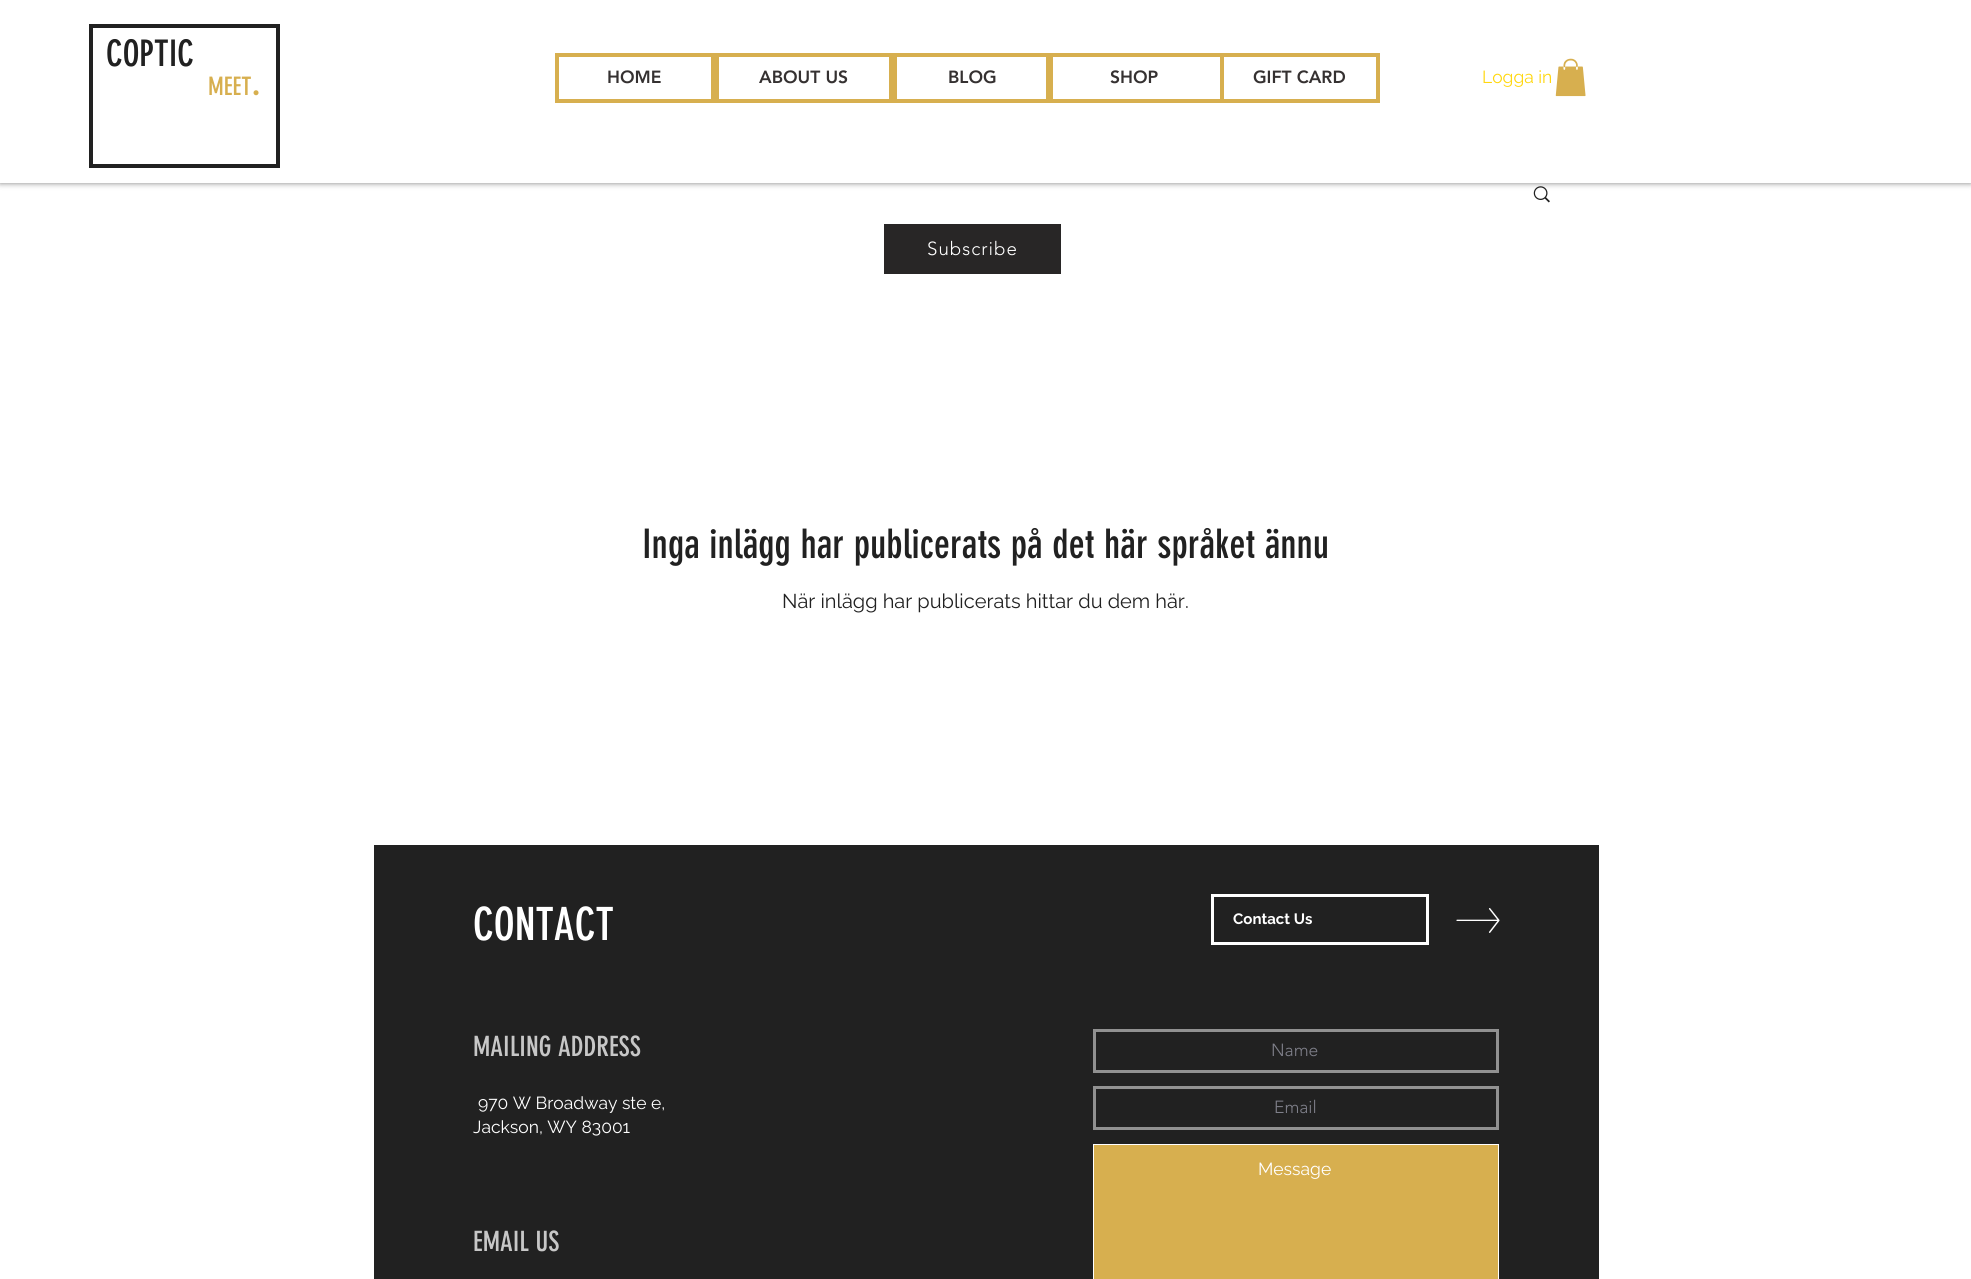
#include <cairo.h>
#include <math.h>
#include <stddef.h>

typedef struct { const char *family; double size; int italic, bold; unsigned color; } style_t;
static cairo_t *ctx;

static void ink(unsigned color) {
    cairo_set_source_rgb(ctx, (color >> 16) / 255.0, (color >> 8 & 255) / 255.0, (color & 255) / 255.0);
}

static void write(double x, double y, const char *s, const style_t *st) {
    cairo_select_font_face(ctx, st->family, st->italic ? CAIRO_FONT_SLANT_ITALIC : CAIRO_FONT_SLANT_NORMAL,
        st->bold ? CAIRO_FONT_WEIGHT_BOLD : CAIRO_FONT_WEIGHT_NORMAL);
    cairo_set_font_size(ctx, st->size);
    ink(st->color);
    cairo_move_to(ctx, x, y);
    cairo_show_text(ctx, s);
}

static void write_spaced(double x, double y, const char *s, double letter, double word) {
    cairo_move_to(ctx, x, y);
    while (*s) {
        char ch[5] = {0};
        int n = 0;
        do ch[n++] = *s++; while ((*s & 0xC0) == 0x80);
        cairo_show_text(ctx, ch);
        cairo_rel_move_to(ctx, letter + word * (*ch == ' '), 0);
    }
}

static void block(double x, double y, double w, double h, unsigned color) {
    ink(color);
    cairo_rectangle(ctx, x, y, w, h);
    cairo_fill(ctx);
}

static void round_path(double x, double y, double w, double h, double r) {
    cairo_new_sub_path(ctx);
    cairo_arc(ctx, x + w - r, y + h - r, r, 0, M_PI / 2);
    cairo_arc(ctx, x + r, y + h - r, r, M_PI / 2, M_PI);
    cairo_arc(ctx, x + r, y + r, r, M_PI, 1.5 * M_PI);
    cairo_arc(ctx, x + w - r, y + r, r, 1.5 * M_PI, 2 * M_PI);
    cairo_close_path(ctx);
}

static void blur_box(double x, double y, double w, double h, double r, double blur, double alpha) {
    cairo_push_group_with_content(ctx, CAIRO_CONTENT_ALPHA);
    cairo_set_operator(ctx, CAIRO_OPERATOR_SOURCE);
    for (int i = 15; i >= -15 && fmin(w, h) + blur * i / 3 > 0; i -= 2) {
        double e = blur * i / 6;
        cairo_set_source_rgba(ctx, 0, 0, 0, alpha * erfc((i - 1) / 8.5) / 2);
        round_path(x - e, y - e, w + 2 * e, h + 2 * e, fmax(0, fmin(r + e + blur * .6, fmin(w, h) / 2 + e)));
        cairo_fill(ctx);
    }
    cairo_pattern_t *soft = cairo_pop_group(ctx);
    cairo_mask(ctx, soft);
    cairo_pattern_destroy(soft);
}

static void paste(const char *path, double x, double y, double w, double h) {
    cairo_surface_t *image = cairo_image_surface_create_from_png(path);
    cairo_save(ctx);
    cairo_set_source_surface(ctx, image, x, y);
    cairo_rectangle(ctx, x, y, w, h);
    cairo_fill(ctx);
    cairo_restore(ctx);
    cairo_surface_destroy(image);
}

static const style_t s1 = {"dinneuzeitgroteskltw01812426", 36, 0, 0, 0x212121};
static const style_t s2 = {"dinneuzeitgroteskltw01812426", 25, 0, 0, 0xd7af4f};
static const style_t s3 = {"dinneuzeitgroteskltw01812426", 42, 0, 0, 0xd7af4f};
static const style_t s4 = {"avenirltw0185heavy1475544 Black", 17.5, 0, 0, 0x353131};
static const style_t s5 = {"Raleway", 17.5, 0, 0, 0xffd70f};
static const style_t s6 = {"dinneuzeitgroteskltw01812426", 40, 0, 0, 0x212121};
static const style_t s7 = {"Raleway", 20, 0, 0, 0x212121};
static const style_t s8 = {"dinneuzeitgroteskltw01812426", 45, 0, 0, 0xffffff};
static const style_t s9 = {"Raleway", 15, 0, 1, 0xffffff};
static const style_t s10 = {"dinneuzeitgroteskltw01812426", 27.5, 0, 0, 0xc7c7c7};
static const style_t s11 = {"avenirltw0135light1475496 Light", 17.5, 0, 0, 0x7f808a};
static const style_t s12 = {"Raleway", 17.5, 0, 0, 0xffffff};

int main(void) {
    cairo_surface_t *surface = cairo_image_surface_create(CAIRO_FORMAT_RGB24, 1971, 1279);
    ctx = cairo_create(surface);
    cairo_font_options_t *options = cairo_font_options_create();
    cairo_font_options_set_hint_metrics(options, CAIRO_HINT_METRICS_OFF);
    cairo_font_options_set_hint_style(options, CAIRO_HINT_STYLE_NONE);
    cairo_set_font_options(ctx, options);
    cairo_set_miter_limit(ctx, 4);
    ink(0xffffff);
    cairo_paint(ctx);
    paste("pic2.png", 1533, 186, 17, 17);
    cairo_save(ctx);
    cairo_set_fill_rule(ctx, CAIRO_FILL_RULE_EVEN_ODD);
    cairo_new_path(ctx);
    cairo_move_to(ctx, 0, 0);
    cairo_line_to(ctx, 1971, 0);
    cairo_line_to(ctx, 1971, 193);
    cairo_line_to(ctx, 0, 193);
    cairo_close_path(ctx);
    cairo_move_to(ctx, 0, 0);
    cairo_line_to(ctx, 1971, 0);
    cairo_line_to(ctx, 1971, 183);
    cairo_line_to(ctx, 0, 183);
    cairo_close_path(ctx);
    cairo_clip(ctx);
    ink(0x000000);
    blur_box(0, 0, 1971, 183, 0, 3, 0.5);
    cairo_restore(ctx);
    cairo_rectangle(ctx, 91, 26, 187, 140);
    ink(0x212121);
    cairo_set_line_width(ctx, 4);
    cairo_stroke(ctx);
    write(106, 66, "COPTIC", &s1);
    write(208, 95, "MEET", &s2);
    write(251, 95, ".", &s3);
    cairo_set_source_rgba(ctx, 1, 1, 1, 0.6);
    cairo_rectangle(ctx, 0, 182, 1971, 1);
    cairo_fill(ctx);
    cairo_rectangle(ctx, 557, 55, 156, 46);
    ink(0xd7af4f);
    cairo_stroke(ctx);
    write(607, 83, "HOME", &s4);
    cairo_rectangle(ctx, 717, 55, 174, 46);
    ink(0xd7af4f);
    cairo_stroke(ctx);
    write(759, 83, "ABOUT US", &s4);
    cairo_rectangle(ctx, 895, 55, 156, 46);
    ink(0xd7af4f);
    cairo_stroke(ctx);
    write(948, 83, "BLOG", &s4);
    cairo_rectangle(ctx, 1048, 55, 174, 46);
    ink(0xd7af4f);
    cairo_stroke(ctx);
    write(1110, 83, "SHOP", &s4);
    cairo_rectangle(ctx, 1222, 55, 156, 46);
    ink(0xd7af4f);
    cairo_stroke(ctx);
    write(1253, 83, "GIFT CARD", &s4);
    write(1482, 83, "Logga in", &s5);
    paste("pic1.png", 1555, 58, 31, 39);
    block(884, 224, 177, 50, 0x282626);
    cairo_select_font_face(ctx, "avenirltw0135light1475496 Light", CAIRO_FONT_SLANT_NORMAL, CAIRO_FONT_WEIGHT_NORMAL);
    cairo_set_font_size(ctx, 18.75);
    ink(0xffffff);
    write_spaced(927, 255, "Subscribe", 1, 0);
    write(642, 558, "Inga inlägg har publicerats på det här språket ännu", &s6);
    write(782, 608, "När inlägg har publicerats hittar du dem här.", &s7);
    block(374, 845, 1225, 434, 0x212121);
    write(473, 940, "CONTACT", &s8);
    cairo_rectangle(ctx, 1212.5, 895.5, 215, 48);
    cairo_set_line_width(ctx, 3);
    cairo_stroke(ctx);
    write(1233, 924, "Contact Us", &s9);
    paste("pic3.png", 1456, 908, 44, 25);
    write(473, 1056, "MAILING ADDRESS", &s10);
    cairo_rectangle(ctx, 1094.5, 1030.5, 403, 41);
    ink(0x919191);
    cairo_stroke(ctx);
    write(1271, 1056, "Name", &s11);
    cairo_rectangle(ctx, 1094.5, 1087.5, 403, 41);
    ink(0x919191);
    cairo_stroke(ctx);
    write(1274, 1113, "Email", &s11);
    ink(0xd7af4f);
    cairo_rectangle(ctx, 1093.5, 1144.5, 405, 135);
    cairo_fill_preserve(ctx);
    ink(0xffffff);
    cairo_set_line_width(ctx, 1);
    cairo_stroke(ctx);
    write(1258, 1175, "Message", &s12);
    write(478, 1109, "970 W Broadway ste e,", &s12);
    write(473, 1133, "Jackson, WY 83001", &s12);
    write(473, 1251, "EMAIL US", &s10);
    cairo_surface_write_to_png(surface, "screenshot.png");
    cairo_font_options_destroy(options);
    cairo_destroy(ctx);
    cairo_surface_destroy(surface);
    return 0;
}
